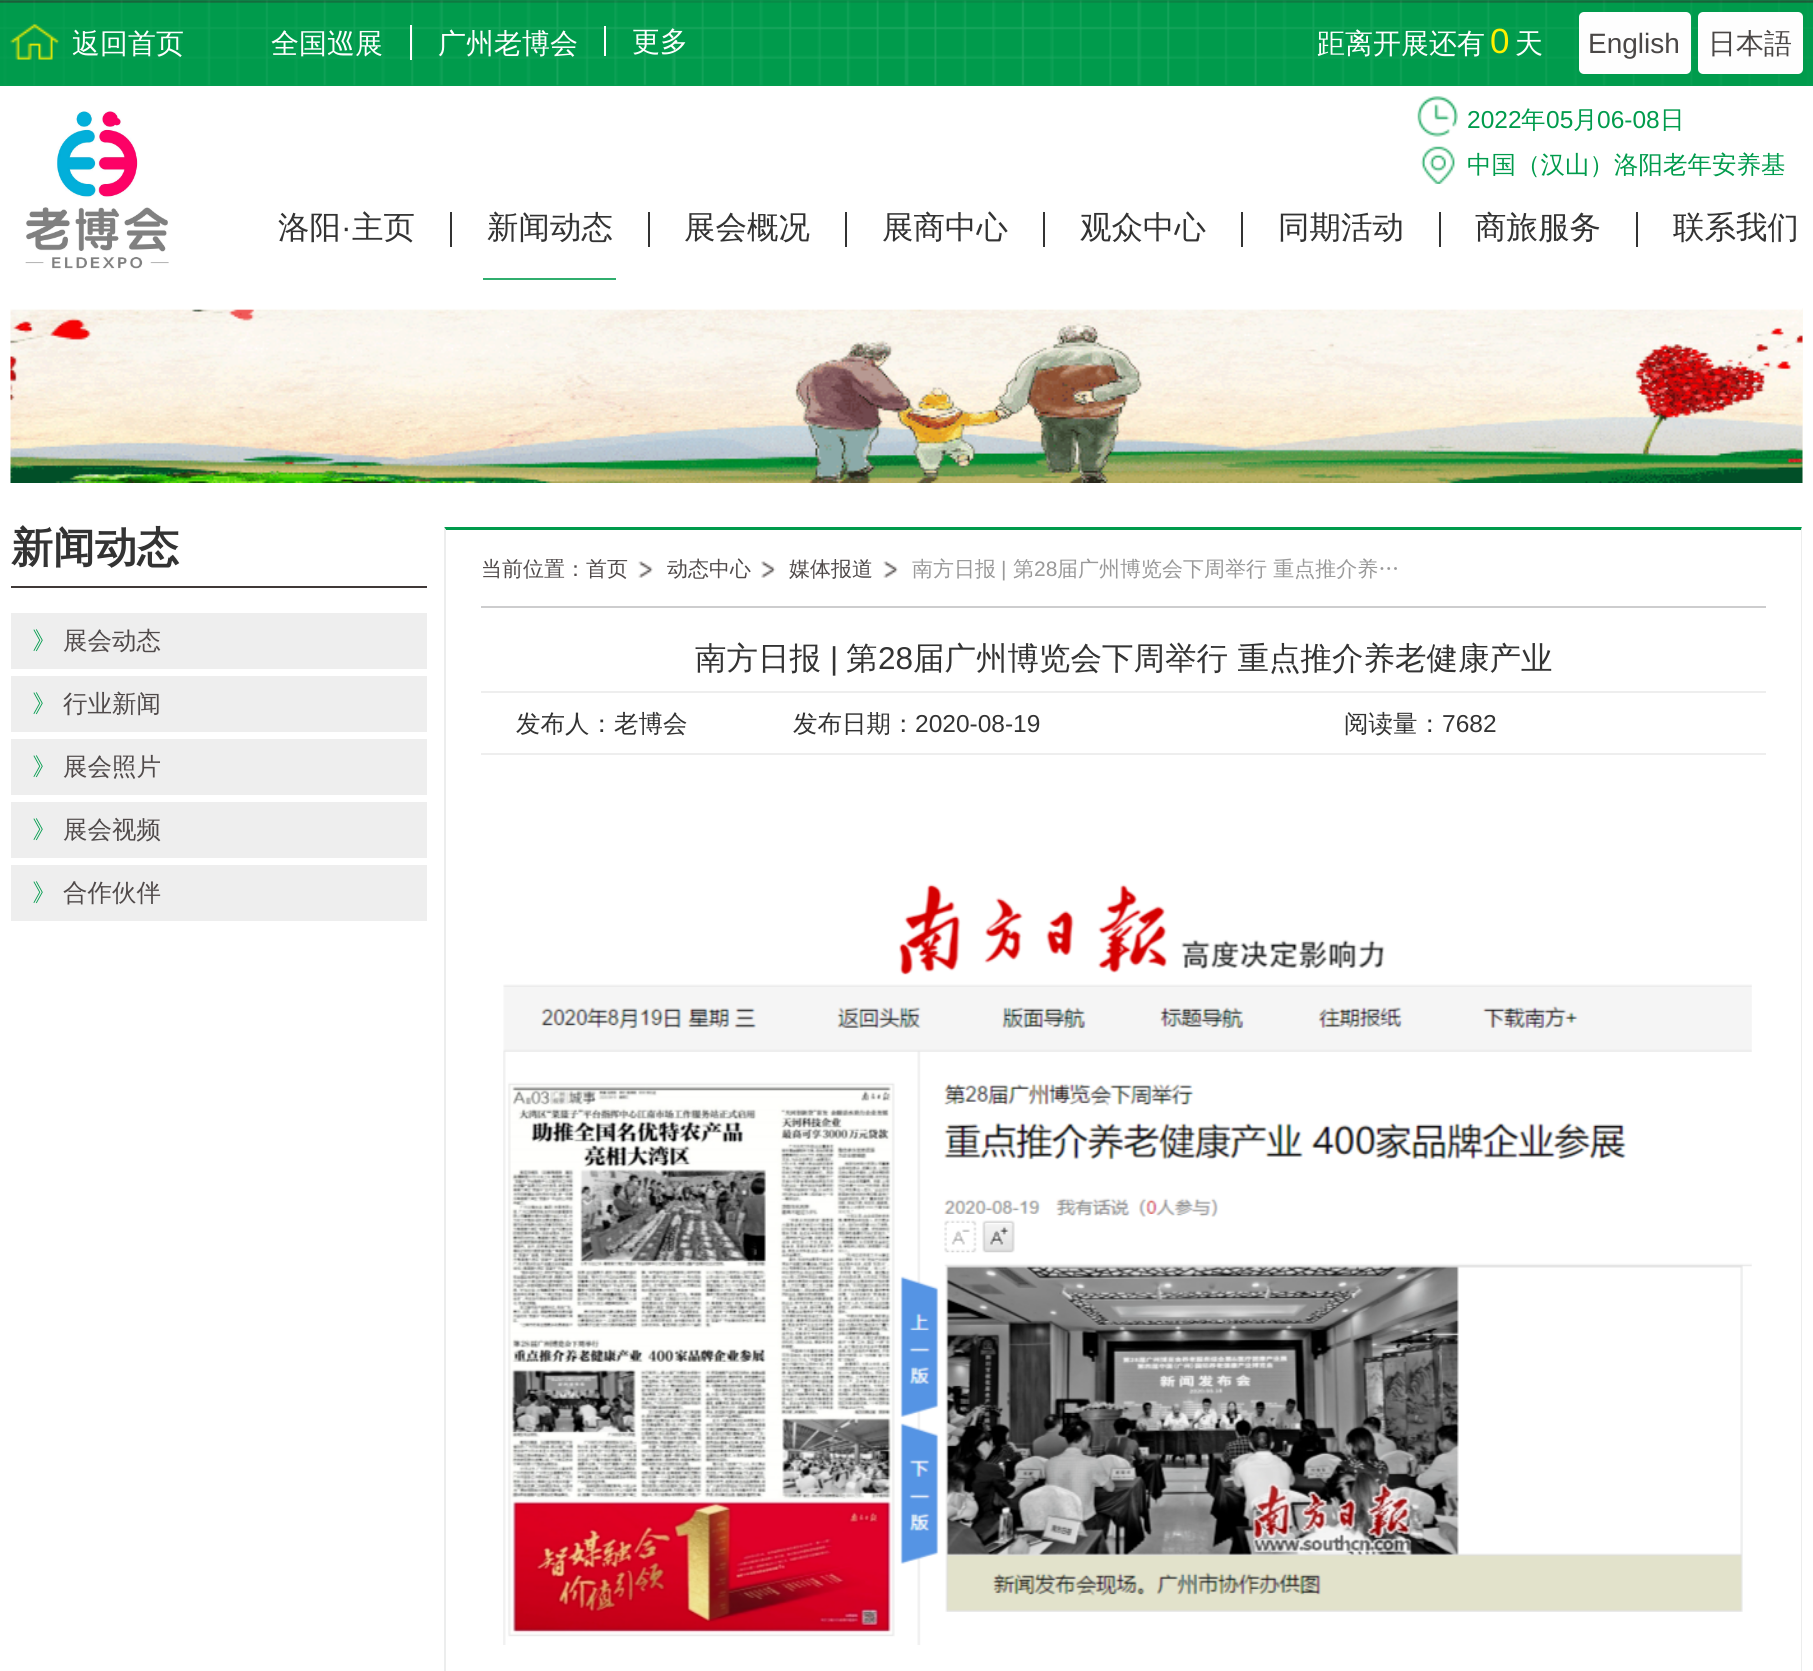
#include <cairo.h>
#include <math.h>
#include <stddef.h>

typedef struct { const char *family; double size; int italic, bold; unsigned color; } style_t;
static cairo_t *ctx;

static void ink(unsigned color) {
    cairo_set_source_rgb(ctx, (color >> 16) / 255.0, (color >> 8 & 255) / 255.0, (color & 255) / 255.0);
}

static void write(double x, double y, const char *s, const style_t *st) {
    cairo_select_font_face(ctx, st->family, st->italic ? CAIRO_FONT_SLANT_ITALIC : CAIRO_FONT_SLANT_NORMAL,
        st->bold ? CAIRO_FONT_WEIGHT_BOLD : CAIRO_FONT_WEIGHT_NORMAL);
    cairo_set_font_size(ctx, st->size);
    ink(st->color);
    cairo_move_to(ctx, x, y);
    cairo_show_text(ctx, s);
}

static void block(double x, double y, double w, double h, unsigned color) {
    ink(color);
    cairo_rectangle(ctx, x, y, w, h);
    cairo_fill(ctx);
}

static void round_path(double x, double y, double w, double h, double r) {
    cairo_new_sub_path(ctx);
    cairo_arc(ctx, x + w - r, y + h - r, r, 0, M_PI / 2);
    cairo_arc(ctx, x + r, y + h - r, r, M_PI / 2, M_PI);
    cairo_arc(ctx, x + r, y + r, r, M_PI, 1.5 * M_PI);
    cairo_arc(ctx, x + w - r, y + r, r, 1.5 * M_PI, 2 * M_PI);
    cairo_close_path(ctx);
}

static void paste(const char *path, double x, double y, double w, double h) {
    cairo_surface_t *image = cairo_image_surface_create_from_png(path);
    cairo_save(ctx);
    cairo_set_source_surface(ctx, image, x, y);
    cairo_rectangle(ctx, x, y, w, h);
    cairo_fill(ctx);
    cairo_restore(ctx);
    cairo_surface_destroy(image);
}

static const style_t s1 = {"WenQuanYi Zen Hei Medium", 28, 0, 0, 0xfefefe};
static const style_t s2 = {"Liberation Sans", 35, 0, 0, 0xfff000};
static const style_t s3 = {"Liberation Sans", 28, 0, 0, 0x4a4746};
static const style_t s4 = {"WenQuanYi Zen Hei Medium", 28, 0, 0, 0x4a4746};
static const style_t s5 = {"Liberation Sans", 24.5, 0, 0, 0x009b4c};
static const style_t s6 = {"WenQuanYi Zen Hei Medium", 24.5, 0, 0, 0x009b4c};
static const style_t s7 = {"WenQuanYi Zen Hei Medium", 31.5, 0, 0, 0x333333};
static const style_t s8 = {"Liberation Sans", 31.5, 0, 0, 0x333333};
static const style_t s9 = {"WenQuanYi Zen Hei", 42, 0, 1, 0x333333};
static const style_t s10 = {"WenQuanYi Zen Hei Medium", 24.5, 0, 0, 0x504a4a};
static const style_t s11 = {"WenQuanYi Zen Hei Medium", 21, 0, 0, 0x504a4a};
static const style_t s12 = {"WenQuanYi Zen Hei Medium", 21, 0, 0, 0x999999};
static const style_t s13 = {"Liberation Sans", 21, 0, 0, 0x999999};
static const style_t s14 = {"WenQuanYi Zen Hei Medium", 24.5, 0, 0, 0x333333};
static const style_t s15 = {"Liberation Sans", 24.5, 0, 0, 0x333333};

int main(void) {
    cairo_surface_t *surface = cairo_image_surface_create(CAIRO_FORMAT_RGB24, 1813, 1671);
    ctx = cairo_create(surface);
    cairo_font_options_t *options = cairo_font_options_create();
    cairo_font_options_set_hint_metrics(options, CAIRO_HINT_METRICS_OFF);
    cairo_font_options_set_hint_style(options, CAIRO_HINT_STYLE_NONE);
    cairo_set_font_options(ctx, options);
    cairo_set_miter_limit(ctx, 4);
    ink(0xffffff);
    cairo_paint(ctx);
    block(0, 0, 1813, 86, 0x009b4c);
    paste("pic1.png", 0, 0, 1813, 86);
    paste("pic2.png", 10, 24, 50, 36);
    write(72, 53, "返回首页", &s1);
    block(410, 25, 2, 35, 0xfefefe);
    write(271, 53, "全国巡展", &s1);
    write(438, 53, "广州老博会", &s1);
    write(632, 51, "更多", &s1);
    block(604, 26, 2, 30, 0xfefefe);
    write(1317, 53, "距离开展还有", &s1);
    write(1490, 53, "0", &s2);
    write(1515, 53, "天", &s1);
    round_path(1579, 12, 112, 62, 5);
    cairo_fill(ctx);
    write(1588, 53, "English", &s3);
    ink(0xfefefe);
    round_path(1698, 12, 105, 62, 5);
    cairo_fill(ctx);
    write(1708, 53, "日本語", &s4);
    paste("pic3.png", 25, 111, 144, 158);
    paste("pic4.png", 1417, 96, 41, 41);
    write(1467, 128, "2022", &s5);
    write(1521, 128, "年", &s6);
    write(1546, 128, "05", &s5);
    write(1573, 128, "月", &s6);
    write(1597, 128, "06-08", &s5);
    write(1660, 128, "日", &s6);
    paste("pic5.png", 1420, 146, 35, 38);
    write(1467, 173, "中国（汉山）洛阳老年安养基", &s6);
    block(450, 212, 2, 35, 0x333333);
    write(278, 238, "洛阳", &s7);
    write(341, 238, "·", &s8);
    write(352, 238, "主页", &s7);
    block(648, 212, 2, 35, 0x333333);
    block(483, 278, 133, 2, 0x30ae6e);
    write(487, 238, "新闻动态", &s7);
    block(845, 212, 2, 35, 0x333333);
    write(684, 238, "展会概况", &s7);
    block(1043, 212, 2, 35, 0x333333);
    write(882, 238, "展商中心", &s7);
    block(1241, 212, 2, 35, 0x333333);
    write(1080, 238, "观众中心", &s7);
    block(1439, 212, 2, 35, 0x333333);
    write(1278, 238, "同期活动", &s7);
    block(1636, 212, 2, 35, 0x333333);
    write(1475, 238, "商旅服务", &s7);
    write(1673, 238, "联系我们", &s7);
    block(1802, 308, 1, 175, 0xfcf8ef);
    paste("pic6.png", 10, 308, 1793, 175);
    block(11, 586, 416, 2, 0x403938);
    write(11, 562, "新闻动态", &s9);
    block(11, 613, 416, 56, 0xeeeeee);
    write(32, 649, "》", &s6);
    write(63, 649, "展会动态", &s10);
    block(11, 676, 416, 56, 0xeeeeee);
    write(32, 712, "》", &s6);
    write(63, 712, "行业新闻", &s10);
    block(11, 739, 416, 56, 0xeeeeee);
    write(32, 775, "》", &s6);
    write(63, 775, "展会照片", &s10);
    block(11, 802, 416, 56, 0xeeeeee);
    write(32, 838, "》", &s6);
    write(63, 838, "展会视频", &s10);
    block(11, 865, 416, 56, 0xeeeeee);
    write(32, 901, "》", &s6);
    write(63, 901, "合作伙伴", &s10);
    ink(0x009b4c);
    cairo_new_path(ctx);
    cairo_move_to(ctx, 444, 527);
    cairo_line_to(ctx, 1802, 527);
    cairo_line_to(ctx, 1801, 530);
    cairo_line_to(ctx, 446, 530);
    cairo_close_path(ctx);
    cairo_fill(ctx);
    ink(0xeceded);
    cairo_new_path(ctx);
    cairo_move_to(ctx, 1802, 527);
    cairo_line_to(ctx, 1802, 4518);
    cairo_line_to(ctx, 1801, 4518);
    cairo_line_to(ctx, 1801, 530);
    cairo_close_path(ctx);
    cairo_fill(ctx);
    cairo_new_path(ctx);
    cairo_move_to(ctx, 444, 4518);
    cairo_line_to(ctx, 444, 527);
    cairo_line_to(ctx, 446, 530);
    cairo_line_to(ctx, 446, 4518);
    cairo_close_path(ctx);
    cairo_fill(ctx);
    block(481, 606, 1285, 2, 0xcdcdce);
    paste("pic7.png", 638, 561, 15, 17);
    write(481, 576, "当前位置：首页", &s11);
    paste("pic8.png", 761, 561, 15, 17);
    write(667, 576, "动态中心", &s11);
    paste("pic9.png", 883, 561, 15, 17);
    write(789, 576, "媒体报道", &s11);
    write(912, 576, "南方日报", &s12);
    write(1001, 576, "|", &s13);
    write(1013, 576, "第", &s12);
    write(1034, 576, "28", &s13);
    write(1057, 576, "届广州博览会下周举行 重点推介养…", &s12);
    block(481, 691, 1285, 2, 0xeeeeee);
    write(695, 669, "南方日报", &s7);
    write(830, 669, "|", &s8);
    write(846, 669, "第", &s7);
    write(878, 669, "28", &s8);
    write(913, 669, "届广州博览会下周举行 重点推介养老健康产业", &s7);
    block(481, 753, 1285, 2, 0xeeeeee);
    write(516, 732, "发布人：老博会", &s14);
    write(793, 732, "发布日期：", &s14);
    write(915, 732, "2020-08-19", &s15);
    write(1344, 732, "阅读量：", &s14);
    write(1442, 732, "7682", &s15);
    paste("pic10.png", 503, 884, 1249, 761);
    cairo_surface_write_to_png(surface, "screenshot.png");
    cairo_font_options_destroy(options);
    cairo_destroy(ctx);
    cairo_surface_destroy(surface);
    return 0;
}
